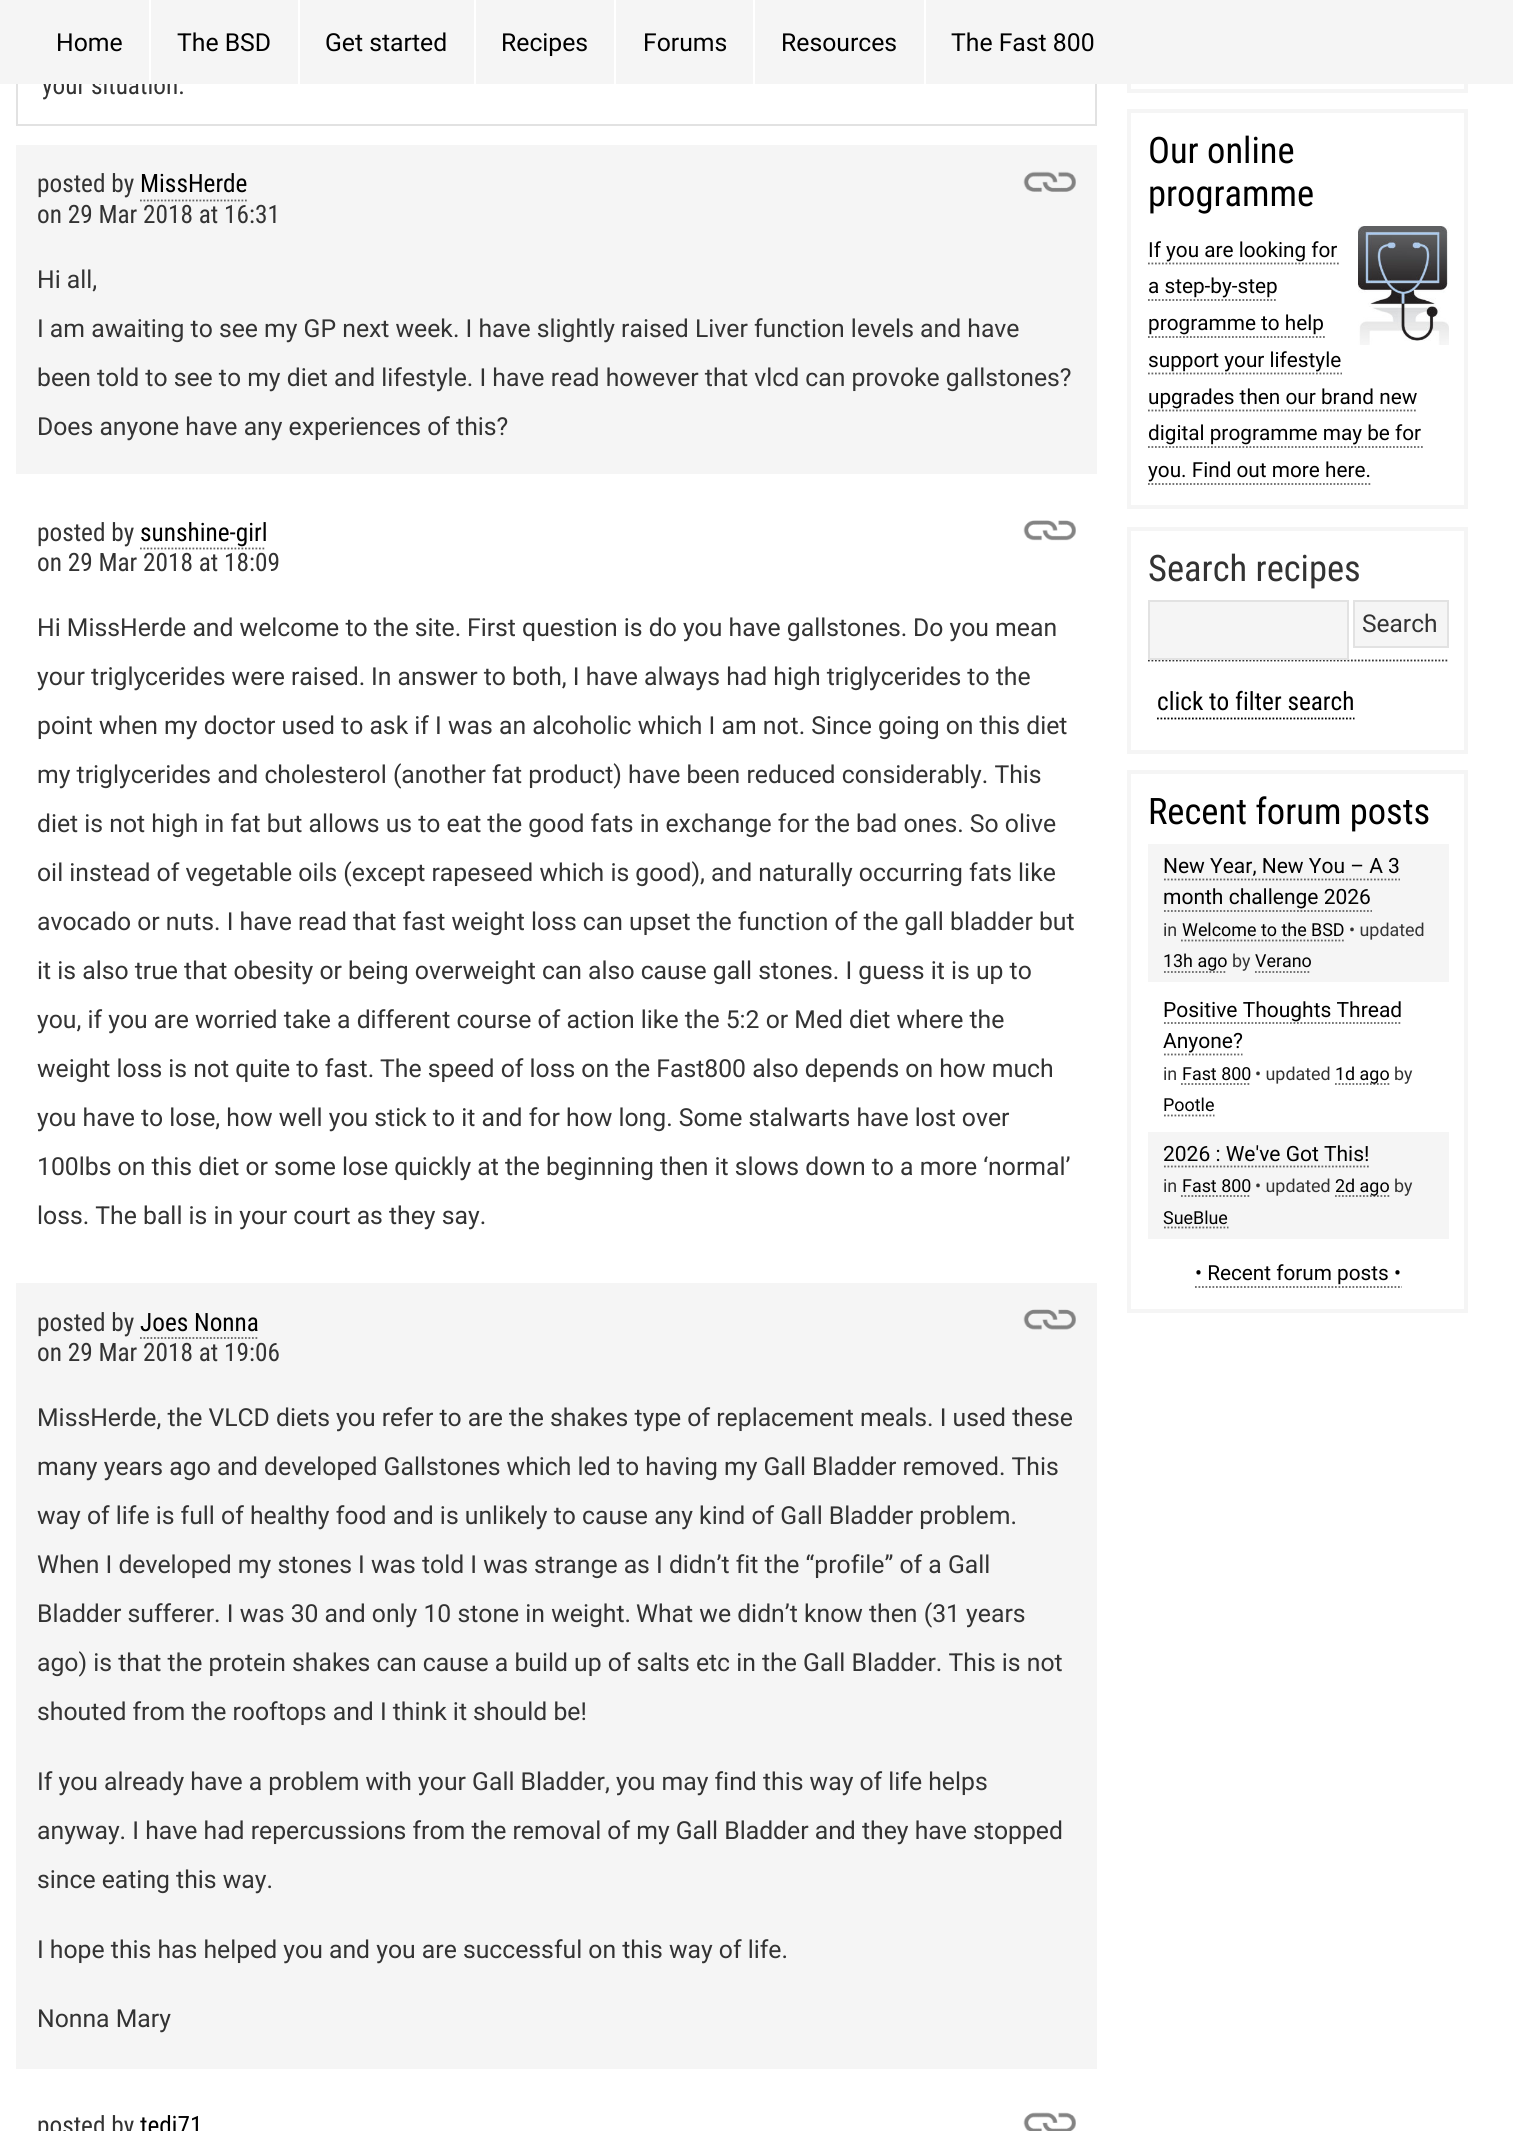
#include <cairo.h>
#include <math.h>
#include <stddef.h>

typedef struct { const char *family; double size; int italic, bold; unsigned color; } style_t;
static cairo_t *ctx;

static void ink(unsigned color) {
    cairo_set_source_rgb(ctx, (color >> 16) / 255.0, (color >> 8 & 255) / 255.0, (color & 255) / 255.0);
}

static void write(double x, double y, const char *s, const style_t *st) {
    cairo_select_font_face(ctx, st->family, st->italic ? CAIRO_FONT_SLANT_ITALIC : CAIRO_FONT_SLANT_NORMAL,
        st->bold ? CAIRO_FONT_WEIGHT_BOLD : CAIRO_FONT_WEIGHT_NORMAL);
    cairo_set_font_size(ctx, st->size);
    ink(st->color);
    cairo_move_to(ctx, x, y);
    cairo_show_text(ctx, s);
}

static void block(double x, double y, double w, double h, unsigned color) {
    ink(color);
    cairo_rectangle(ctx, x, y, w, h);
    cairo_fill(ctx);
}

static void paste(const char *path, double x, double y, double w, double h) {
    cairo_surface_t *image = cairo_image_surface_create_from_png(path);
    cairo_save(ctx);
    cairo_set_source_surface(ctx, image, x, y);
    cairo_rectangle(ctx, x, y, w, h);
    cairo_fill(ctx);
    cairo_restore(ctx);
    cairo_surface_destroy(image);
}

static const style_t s1 = {"Roboto Condensed", 25.25, 0, 0, 0x333333};
static const style_t s2 = {"Roboto", 24.75, 0, 0, 0x000000};
static const style_t s3 = {"Roboto Condensed", 25.25, 0, 0, 0x000000};
static const style_t s4 = {"Roboto", 24.75, 0, 0, 0x333333};
static const style_t s5 = {"Roboto Condensed", 36.5, 0, 0, 0x000000};
static const style_t s6 = {"Roboto", 20.75, 0, 0, 0x000000};
static const style_t s7 = {"Roboto Condensed", 36.5, 0, 0, 0x333333};
static const style_t s8 = {"Roboto", 24.5, 0, 0, 0x333333};
static const style_t s9 = {"Roboto", 21, 0, 0, 0x000000};
static const style_t s10 = {"Roboto", 17.9, 0, 0, 0x333333};
static const style_t s11 = {"Roboto", 17.9, 0, 0, 0x000000};

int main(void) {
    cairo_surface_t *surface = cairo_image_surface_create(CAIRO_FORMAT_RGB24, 1513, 2131);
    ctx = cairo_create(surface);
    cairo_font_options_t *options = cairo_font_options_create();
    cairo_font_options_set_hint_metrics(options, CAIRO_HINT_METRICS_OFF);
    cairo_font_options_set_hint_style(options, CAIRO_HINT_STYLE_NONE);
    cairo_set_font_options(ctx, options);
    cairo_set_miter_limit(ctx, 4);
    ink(0xffffff);
    cairo_paint(ctx);
    cairo_rectangle(ctx, 17, -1, 1079, 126);
    ink(0xe2e2e2);
    cairo_stroke(ctx);
    write(42, 94, "your situation.", &s1);
    cairo_rectangle(ctx, 1129, -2, 337, 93);
    ink(0xf5f5f5);
    cairo_set_line_width(ctx, 4);
    cairo_stroke(ctx);
    block(0, 0, 1513, 84, 0xf5f5f5);
    block(149, 0, 2, 84, 0xffffff);
    write(56, 51, "Home", &s2);
    block(298, 0, 2, 84, 0xffffff);
    write(177, 51, "The BSD", &s2);
    block(474, 0, 2, 84, 0xffffff);
    write(325, 51, "Get started", &s2);
    block(614, 0, 2, 84, 0xffffff);
    write(501, 51, "Recipes", &s2);
    block(753, 0, 2, 84, 0xffffff);
    write(643, 51, "Forums", &s2);
    block(924, 0, 2, 84, 0xffffff);
    write(781, 51, "Resources", &s2);
    write(951, 51, "The Fast 800", &s2);
    block(16, 145, 1081, 329, 0xf5f5f5);
    write(37, 192, "posted by", &s1);
    write(140, 192, "MissHerde", &s3);
    cairo_new_path(ctx);
    cairo_move_to(ctx, 140, 200.5);
    cairo_line_to(ctx, 247, 200.5);
    ink(0x666666);
    cairo_set_line_width(ctx, 1.8);
    cairo_set_dash(ctx, (double[]){1.75, 1.75}, 2, 0);
    cairo_stroke(ctx);
    write(37, 223, "on 29 Mar 2018 at 16:31", &s1);
    paste("pic1.png", 1023, 171, 53, 21);
    write(37, 288, "Hi all,", &s4);
    write(37, 337, "I am awaiting to see my GP next week. I have slightly raised Liver function levels and have", &s4);
    write(37, 386, "been told to see to my diet and lifestyle. I have read however that vlcd can provoke gallstones?", &s4);
    write(37, 435, "Does anyone have any experiences of this?", &s4);
    write(37, 541, "posted by", &s1);
    write(140, 541, "sunshine-girl", &s3);
    cairo_new_path(ctx);
    cairo_move_to(ctx, 140, 548.5);
    cairo_line_to(ctx, 266, 548.5);
    ink(0x666666);
    cairo_stroke(ctx);
    write(37, 571, "on 29 Mar 2018 at 18:09", &s1);
    paste("pic2.png", 1023, 520, 53, 21);
    write(37, 636, "Hi MissHerde and welcome to the site.", &s4);
    write(467, 636, "First question is do you have gallstones.", &s4);
    write(913, 636, "Do you mean", &s4);
    write(37, 685, "your triglycerides were raised.", &s4);
    write(371, 685, "In answer to both, I have always had high triglycerides to the", &s4);
    write(37, 734, "point when my doctor used to ask if I was an alcoholic which I am not. Since going on this diet", &s4);
    write(37, 783, "my triglycerides and cholesterol (another fat product) have been reduced considerably. This", &s4);
    write(37, 832, "diet is not high in fat but allows us to eat the good fats in exchange for the bad ones. So olive", &s4);
    write(37, 881, "oil instead of vegetable oils (except rapeseed which is good), and naturally occurring fats like", &s4);
    write(37, 930, "avocado or nuts. I have read that fast weight loss can upset the function of the gall bladder but", &s4);
    write(37, 979, "it is also true that obesity or being overweight can also cause gall stones. I guess it is up to", &s4);
    write(37, 1028, "you, if you are worried take a different course of action like the 5:2 or Med diet where the", &s4);
    write(37, 1077, "weight loss is not quite to fast.", &s4);
    write(380, 1077, "The speed of loss on the Fast800 also depends on how much", &s4);
    write(37, 1126, "you have to lose, how well you stick to it and for how long. Some stalwarts have lost over", &s4);
    write(37, 1175, "100lbs on this diet or some lose quickly at the beginning then it slows down to a more ‘normal’", &s4);
    write(37, 1224, "loss. The ball is in your court as they say.", &s4);
    block(16, 1283, 1081, 786, 0xf5f5f5);
    write(37, 1331, "posted by", &s1);
    write(140, 1331, "Joes Nonna", &s3);
    cairo_new_path(ctx);
    cairo_move_to(ctx, 140, 1338);
    cairo_line_to(ctx, 259, 1338);
    ink(0x666666);
    cairo_stroke(ctx);
    write(37, 1361, "on 29 Mar 2018 at 19:06", &s1);
    paste("pic3.png", 1023, 1309, 53, 21);
    write(37, 1426, "MissHerde, the VLCD diets you refer to are the shakes type of replacement meals. I used these", &s4);
    write(37, 1475, "many years ago and developed Gallstones which led to having my Gall Bladder removed. This", &s4);
    write(37, 1524, "way of life is full of healthy food and is unlikely to cause any kind of Gall Bladder problem.", &s4);
    write(37, 1573, "When I developed my stones I was told I was strange as I didn’t fit the “profile” of a Gall", &s4);
    write(37, 1622, "Bladder sufferer. I was 30 and only 10 stone in weight.", &s4);
    write(636, 1622, "What we didn’t know then (31 years", &s4);
    write(37, 1671, "ago) is that the protein shakes can cause a build up of salts etc in the Gall Bladder. This is not", &s4);
    write(37, 1720, "shouted from the rooftops and I think it should be!", &s4);
    write(37, 1790, "If you already have a problem with your Gall Bladder, you may find this way of life helps", &s4);
    write(37, 1839, "anyway. I have had repercussions from the removal of my Gall Bladder and they have stopped", &s4);
    write(37, 1888, "since eating this way.", &s4);
    write(37, 1958, "I hope this has helped you and you are successful on this way of life.", &s4);
    write(37, 2027, "Nonna Mary", &s4);
    write(37, 2134, "posted by", &s1);
    write(140, 2134, "tedj71", &s3);
    paste("pic4.png", 1023, 2112, 53, 19);
    cairo_rectangle(ctx, 1129, 111, 337, 396);
    ink(0xf5f5f5);
    cairo_set_line_width(ctx, 4);
    cairo_set_dash(ctx, NULL, 0, 0);
    cairo_stroke(ctx);
    write(1148, 163, "Our online", &s5);
    write(1148, 206, "programme", &s5);
    paste("pic5.png", 1358, 226, 91, 119);
    write(1148, 257, "If you are looking for", &s6);
    cairo_new_path(ctx);
    cairo_move_to(ctx, 1148, 263.5);
    cairo_line_to(ctx, 1339, 263.5);
    ink(0x666666);
    cairo_set_line_width(ctx, 1.8);
    cairo_set_dash(ctx, (double[]){1.75, 1.75}, 2, 0);
    cairo_stroke(ctx);
    write(1148, 293, "a step-by-step", &s6);
    cairo_new_path(ctx);
    cairo_move_to(ctx, 1148, 300);
    cairo_line_to(ctx, 1277.5, 300);
    ink(0x666666);
    cairo_stroke(ctx);
    write(1148, 330, "programme to help", &s6);
    cairo_new_path(ctx);
    cairo_move_to(ctx, 1148, 337);
    cairo_line_to(ctx, 1325, 337);
    ink(0x666666);
    cairo_stroke(ctx);
    write(1148, 367, "support your lifestyle", &s6);
    cairo_new_path(ctx);
    cairo_move_to(ctx, 1148, 373.5);
    cairo_line_to(ctx, 1342, 373.5);
    ink(0x666666);
    cairo_stroke(ctx);
    write(1148, 404, "upgrades then our brand new", &s6);
    cairo_new_path(ctx);
    cairo_move_to(ctx, 1148, 410.5);
    cairo_line_to(ctx, 1417.5, 410.5);
    ink(0x666666);
    cairo_stroke(ctx);
    write(1148, 440, "digital programme may be for", &s6);
    cairo_new_path(ctx);
    cairo_move_to(ctx, 1148, 447);
    cairo_line_to(ctx, 1423, 447);
    ink(0x666666);
    cairo_stroke(ctx);
    write(1148, 477, "you. Find out more here.", &s6);
    cairo_new_path(ctx);
    cairo_move_to(ctx, 1148, 484);
    cairo_line_to(ctx, 1372, 484);
    ink(0x666666);
    cairo_stroke(ctx);
    cairo_rectangle(ctx, 1129, 529, 337, 223);
    ink(0xf5f5f5);
    cairo_set_line_width(ctx, 4);
    cairo_set_dash(ctx, NULL, 0, 0);
    cairo_stroke(ctx);
    write(1148, 581, "Search recipes", &s7);
    cairo_new_path(ctx);
    cairo_move_to(ctx, 1148, 660.5);
    cairo_line_to(ctx, 1449, 660.5);
    cairo_set_line_width(ctx, 1.8);
    cairo_set_dash(ctx, (double[]){1.75, 1.75}, 2, 0);
    cairo_stroke(ctx);
    ink(0xf5f5f5);
    cairo_rectangle(ctx, 1149, 601, 199, 58);
    cairo_fill_preserve(ctx);
    ink(0xe2e2e2);
    cairo_set_line_width(ctx, 2);
    cairo_set_dash(ctx, NULL, 0, 0);
    cairo_stroke(ctx);
    ink(0xf5f5f5);
    cairo_rectangle(ctx, 1354, 601, 94, 46);
    cairo_fill_preserve(ctx);
    ink(0xe2e2e2);
    cairo_stroke(ctx);
    write(1362, 632, "Search", &s8);
    write(1157, 710, "click to filter search", &s3);
    cairo_new_path(ctx);
    cairo_move_to(ctx, 1157, 718.5);
    cairo_line_to(ctx, 1354.5, 718.5);
    cairo_set_line_width(ctx, 1.8);
    cairo_set_dash(ctx, (double[]){1.75, 1.75}, 2, 0);
    cairo_stroke(ctx);
    cairo_rectangle(ctx, 1129, 772, 337, 539);
    ink(0xf5f5f5);
    cairo_set_line_width(ctx, 4);
    cairo_set_dash(ctx, NULL, 0, 0);
    cairo_stroke(ctx);
    write(1148, 824, "Recent forum posts", &s5);
    block(1148, 844, 301, 138, 0xf5f5f5);
    write(1163, 873, "New Year, New You – A 3", &s9);
    cairo_new_path(ctx);
    cairo_move_to(ctx, 1164, 879.5);
    cairo_line_to(ctx, 1400, 879.5);
    ink(0x666666);
    cairo_set_line_width(ctx, 1.8);
    cairo_set_dash(ctx, (double[]){1.75, 1.75}, 2, 0);
    cairo_stroke(ctx);
    write(1163, 904, "month challenge 2026", &s9);
    cairo_new_path(ctx);
    cairo_move_to(ctx, 1164, 911);
    cairo_line_to(ctx, 1372, 911);
    ink(0x666666);
    cairo_stroke(ctx);
    write(1163, 936, "in", &s10);
    write(1182, 936, "Welcome to the BSD", &s11);
    cairo_new_path(ctx);
    cairo_move_to(ctx, 1181, 940.5);
    cairo_line_to(ctx, 1344, 940.5);
    ink(0x666666);
    cairo_stroke(ctx);
    write(1349, 936, "• updated", &s10);
    write(1163, 967, "13h ago", &s11);
    cairo_new_path(ctx);
    cairo_move_to(ctx, 1164, 972);
    cairo_line_to(ctx, 1227, 972);
    ink(0x666666);
    cairo_stroke(ctx);
    write(1232, 967, "by", &s10);
    write(1255, 967, "Verano", &s11);
    cairo_new_path(ctx);
    cairo_move_to(ctx, 1255, 972);
    cairo_line_to(ctx, 1311, 972);
    ink(0x666666);
    cairo_stroke(ctx);
    write(1163, 1017, "Positive Thoughts Thread", &s9);
    cairo_new_path(ctx);
    cairo_move_to(ctx, 1164, 1023);
    cairo_line_to(ctx, 1402, 1023);
    ink(0x666666);
    cairo_stroke(ctx);
    write(1163, 1048, "Anyone?", &s9);
    cairo_new_path(ctx);
    cairo_move_to(ctx, 1164, 1054.5);
    cairo_line_to(ctx, 1242.5, 1054.5);
    ink(0x666666);
    cairo_stroke(ctx);
    write(1163, 1080, "in", &s10);
    write(1182, 1080, "Fast 800", &s11);
    cairo_new_path(ctx);
    cairo_move_to(ctx, 1181, 1084);
    cairo_line_to(ctx, 1251, 1084);
    ink(0x666666);
    cairo_stroke(ctx);
    write(1255, 1080, "• updated", &s10);
    cairo_new_path(ctx);
    cairo_move_to(ctx, 1335, 1084);
    cairo_line_to(ctx, 1389.5, 1084);
    ink(0x666666);
    cairo_stroke(ctx);
    write(1335, 1080, "1d ago", &s11);
    write(1394, 1080, "by", &s10);
    write(1163, 1111, "Pootle", &s11);
    cairo_new_path(ctx);
    cairo_move_to(ctx, 1164, 1115.5);
    cairo_line_to(ctx, 1214.5, 1115.5);
    ink(0x666666);
    cairo_stroke(ctx);
    block(1148, 1132, 301, 107, 0xf5f5f5);
    write(1163, 1161, "2026 : We've Got This!", &s9);
    cairo_new_path(ctx);
    cairo_move_to(ctx, 1164, 1166.5);
    cairo_line_to(ctx, 1370, 1166.5);
    ink(0x666666);
    cairo_stroke(ctx);
    write(1163, 1192, "in", &s10);
    write(1182, 1192, "Fast 800", &s11);
    cairo_new_path(ctx);
    cairo_move_to(ctx, 1181, 1196);
    cairo_line_to(ctx, 1251, 1196);
    ink(0x666666);
    cairo_stroke(ctx);
    write(1255, 1192, "• updated", &s10);
    cairo_new_path(ctx);
    cairo_move_to(ctx, 1335, 1196);
    cairo_line_to(ctx, 1389.5, 1196);
    ink(0x666666);
    cairo_stroke(ctx);
    write(1335, 1192, "2d ago", &s11);
    write(1394, 1192, "by", &s10);
    write(1163, 1224, "SueBlue", &s11);
    cairo_new_path(ctx);
    cairo_move_to(ctx, 1164, 1227.5);
    cairo_line_to(ctx, 1228.5, 1227.5);
    ink(0x666666);
    cairo_stroke(ctx);
    write(1195, 1280, "• Recent forum posts •", &s6);
    cairo_new_path(ctx);
    cairo_move_to(ctx, 1195, 1287);
    cairo_line_to(ctx, 1402, 1287);
    ink(0x666666);
    cairo_stroke(ctx);
    cairo_surface_write_to_png(surface, "screenshot.png");
    cairo_font_options_destroy(options);
    cairo_destroy(ctx);
    cairo_surface_destroy(surface);
    return 0;
}
